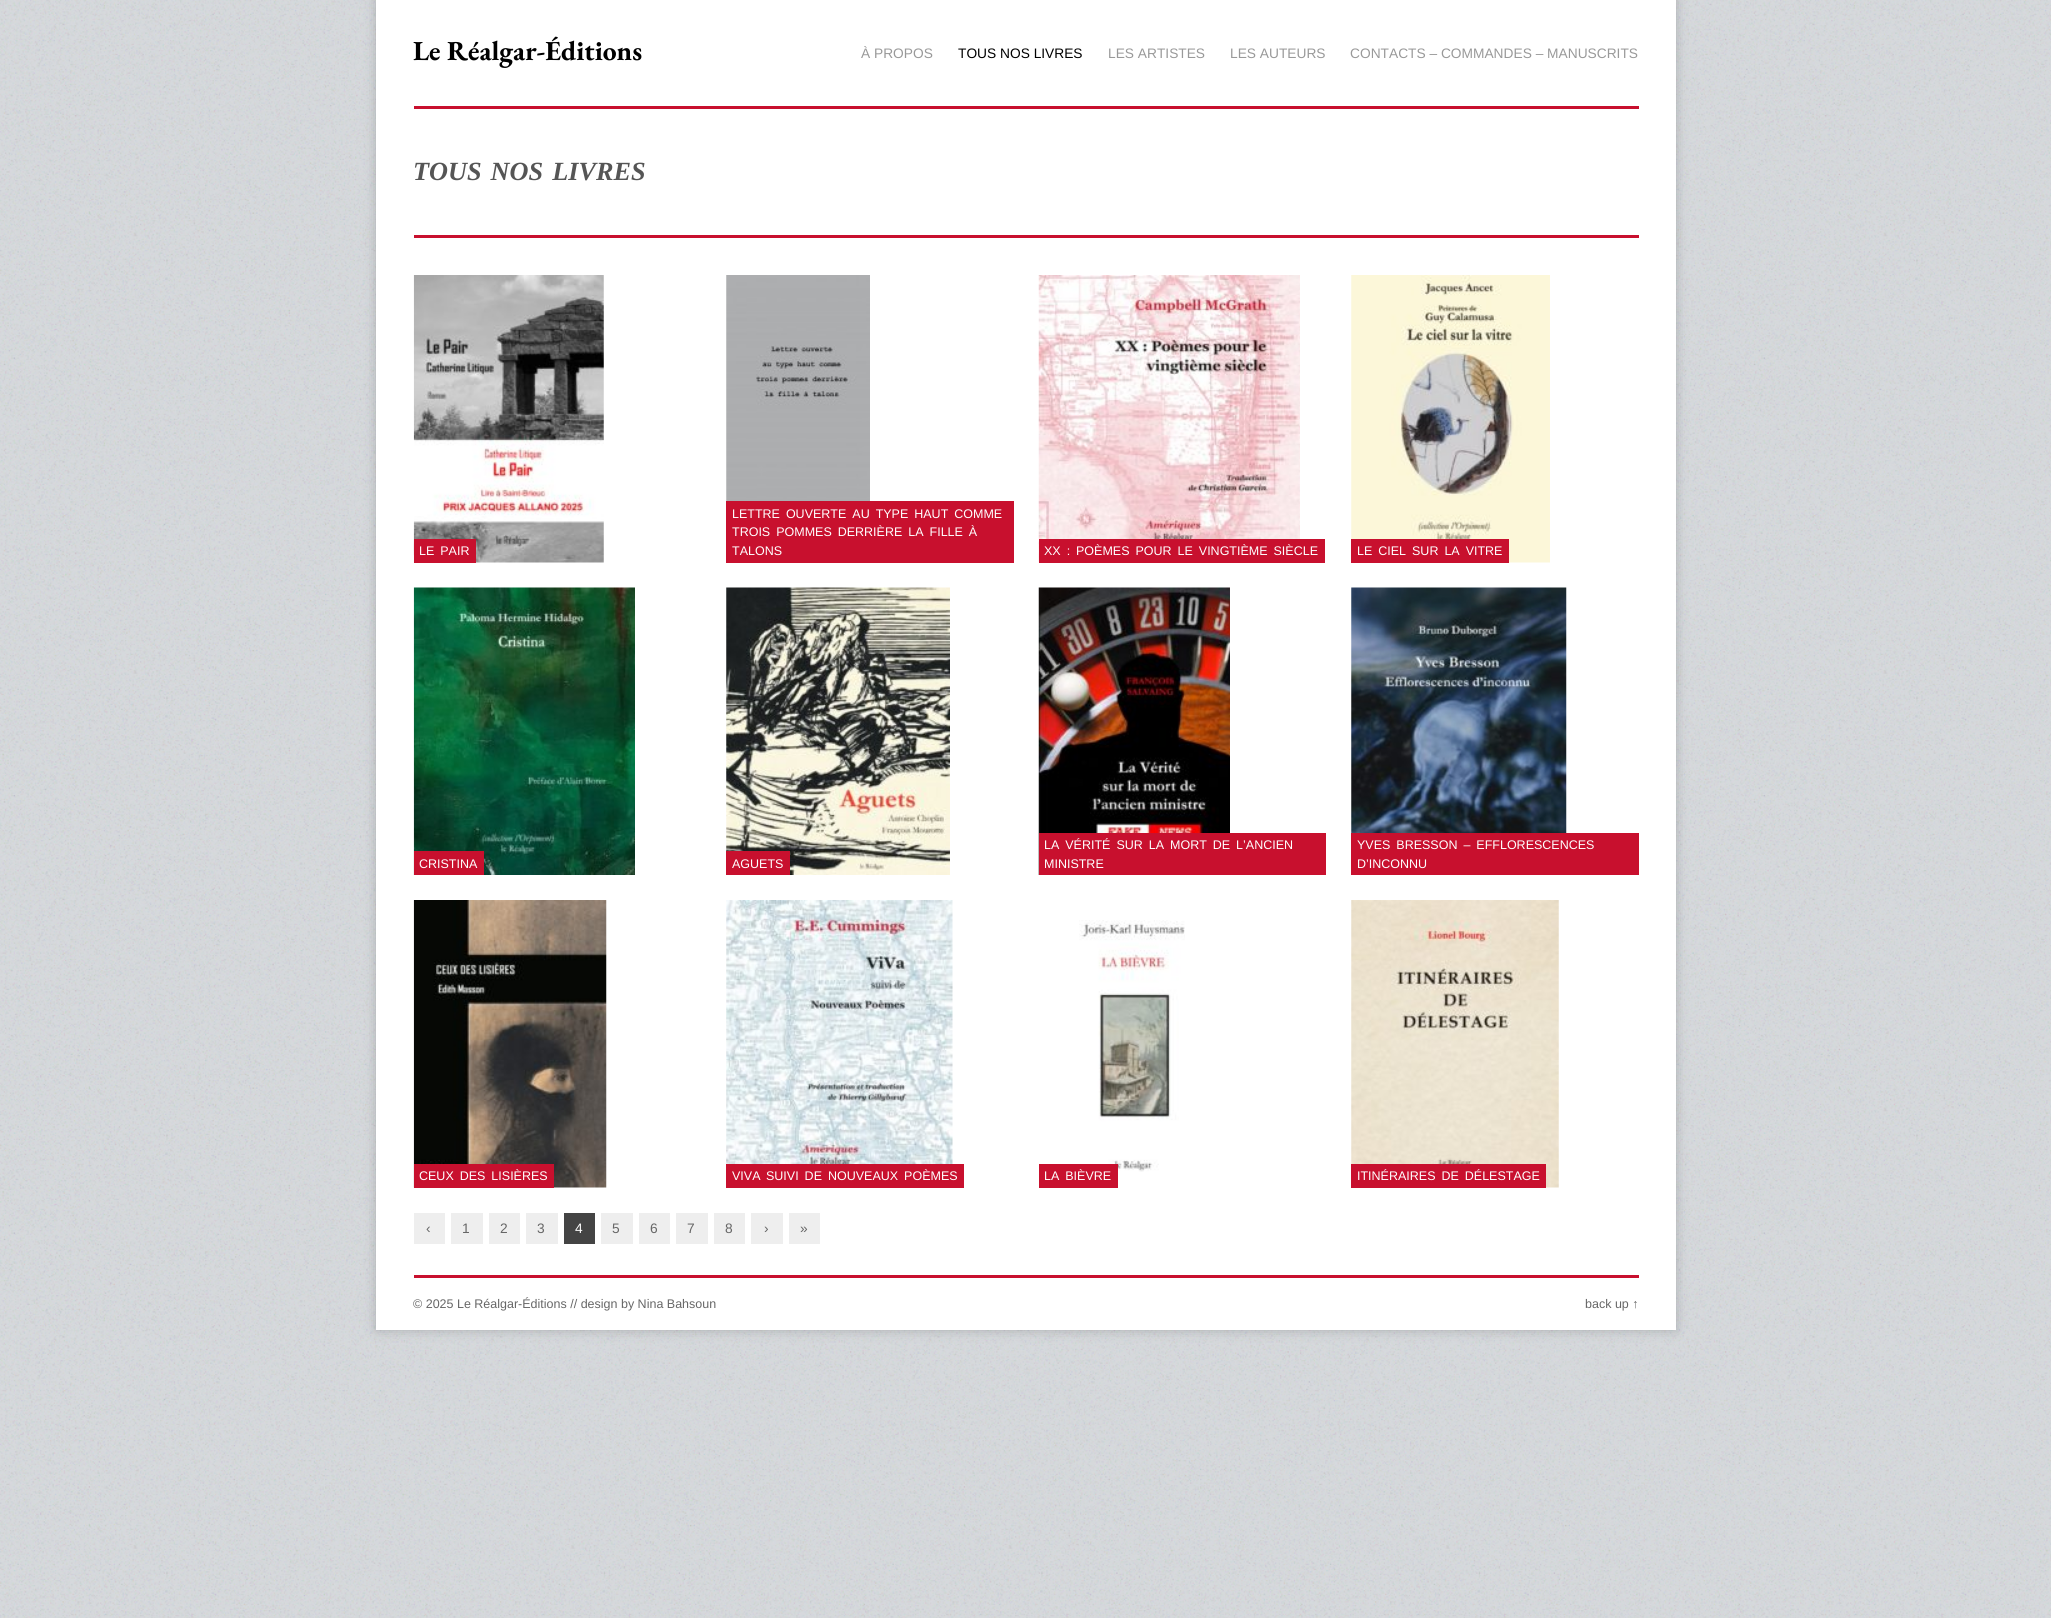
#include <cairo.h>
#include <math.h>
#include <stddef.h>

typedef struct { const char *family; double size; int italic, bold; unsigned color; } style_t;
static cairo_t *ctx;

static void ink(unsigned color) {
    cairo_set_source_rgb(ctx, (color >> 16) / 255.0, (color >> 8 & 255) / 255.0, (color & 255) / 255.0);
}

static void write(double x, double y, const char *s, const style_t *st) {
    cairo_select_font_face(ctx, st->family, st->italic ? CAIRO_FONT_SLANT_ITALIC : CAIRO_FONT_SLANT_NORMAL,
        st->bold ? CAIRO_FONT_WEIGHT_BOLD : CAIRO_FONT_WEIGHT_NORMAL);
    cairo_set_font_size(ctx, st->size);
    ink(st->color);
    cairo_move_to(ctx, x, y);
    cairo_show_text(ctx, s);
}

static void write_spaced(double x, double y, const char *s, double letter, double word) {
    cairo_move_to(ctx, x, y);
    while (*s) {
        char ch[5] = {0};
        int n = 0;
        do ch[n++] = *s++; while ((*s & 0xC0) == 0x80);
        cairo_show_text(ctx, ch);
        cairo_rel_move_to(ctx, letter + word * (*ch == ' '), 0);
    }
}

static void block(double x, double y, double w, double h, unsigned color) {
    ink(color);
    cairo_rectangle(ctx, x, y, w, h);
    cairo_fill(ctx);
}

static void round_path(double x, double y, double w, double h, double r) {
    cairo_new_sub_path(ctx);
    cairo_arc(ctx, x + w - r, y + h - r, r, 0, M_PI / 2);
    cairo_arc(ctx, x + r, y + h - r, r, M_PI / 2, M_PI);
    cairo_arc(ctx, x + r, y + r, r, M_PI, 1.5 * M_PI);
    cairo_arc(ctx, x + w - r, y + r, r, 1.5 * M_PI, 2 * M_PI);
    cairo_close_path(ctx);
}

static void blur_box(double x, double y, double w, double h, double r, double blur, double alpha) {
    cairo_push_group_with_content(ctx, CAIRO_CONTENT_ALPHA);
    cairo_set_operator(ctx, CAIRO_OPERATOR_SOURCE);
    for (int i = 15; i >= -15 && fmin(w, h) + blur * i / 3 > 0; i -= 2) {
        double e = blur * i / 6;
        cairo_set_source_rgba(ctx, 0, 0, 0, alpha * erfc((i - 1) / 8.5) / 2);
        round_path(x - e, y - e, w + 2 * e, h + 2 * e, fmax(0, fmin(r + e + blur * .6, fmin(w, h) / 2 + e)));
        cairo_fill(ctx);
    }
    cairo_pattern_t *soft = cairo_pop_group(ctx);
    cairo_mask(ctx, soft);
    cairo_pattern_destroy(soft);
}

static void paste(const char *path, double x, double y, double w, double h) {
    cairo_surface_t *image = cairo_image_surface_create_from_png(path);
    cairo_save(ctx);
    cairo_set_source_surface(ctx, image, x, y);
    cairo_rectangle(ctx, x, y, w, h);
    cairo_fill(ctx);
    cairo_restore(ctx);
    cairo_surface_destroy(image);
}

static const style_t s1 = {"EB Garamond", 27.5, 0, 1, 0x000000};
static const style_t s2 = {"Liberation Sans", 13.75, 0, 0, 0x999999};
static const style_t s3 = {"Liberation Sans", 13.75, 0, 0, 0x000000};
static const style_t s4 = {"Liberation Sans", 12.5, 0, 0, 0xffffff};
static const style_t s5 = {"Liberation Sans", 13.75, 0, 0, 0x666666};
static const style_t s6 = {"Liberation Sans", 13.75, 0, 0, 0xffffff};
static const style_t s7 = {"Liberation Sans", 12.5, 0, 0, 0x666666};

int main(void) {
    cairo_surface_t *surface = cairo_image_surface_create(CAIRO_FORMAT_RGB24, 2051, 1618);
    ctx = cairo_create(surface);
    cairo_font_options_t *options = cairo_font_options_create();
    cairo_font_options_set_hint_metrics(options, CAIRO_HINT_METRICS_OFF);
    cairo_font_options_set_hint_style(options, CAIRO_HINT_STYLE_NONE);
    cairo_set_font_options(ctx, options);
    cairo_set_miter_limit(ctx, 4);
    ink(0xffffff);
    cairo_paint(ctx);
    paste("pic1.png", 0, 0, 2051, 1618);
    ink(0x000000);
    blur_box(376, 0, 1300, 1330, 0, 6, 0.2);
    block(376, 0, 1300, 1330, 0xffffff);
    block(414, 106, 1225, 3, 0xc8102e);
    write(413, 60, "Le Réalgar-Éditions", &s1);
    write(861, 58, "À PROPOS", &s2);
    write(958, 58, "TOUS NOS LIVRES", &s3);
    write(1108, 58, "LES ARTISTES", &s2);
    write(1230, 58, "LES AUTEURS", &s2);
    write(1350, 58, "CONTACTS – COMMANDES – MANUSCRITS", &s2);
    block(414, 235, 1225, 3, 0xc8102e);
    cairo_select_font_face(ctx, "Liberation Serif", CAIRO_FONT_SLANT_ITALIC, CAIRO_FONT_WEIGHT_BOLD);
    cairo_set_font_size(ctx, 26.25);
    ink(0x555555);
    write_spaced(413, 180, "TOUS NOS LIVRES", 0, 2.5);
    paste("pic2.png", 413, 275, 191, 288);
    block(414, 539, 62, 24, 0xc8102e);
    cairo_select_font_face(ctx, "Liberation Sans", CAIRO_FONT_SLANT_NORMAL, CAIRO_FONT_WEIGHT_NORMAL);
    cairo_set_font_size(ctx, 12.5);
    ink(0xffffff);
    write_spaced(419, 555, "LE PAIR", 0, 2.5);
    paste("pic3.png", 726, 275, 144, 226);
    block(726, 501, 288, 62, 0xc8102e);
    ink(0xffffff);
    write_spaced(732, 518, "LETTRE OUVERTE AU TYPE HAUT COMME", 0, 2.5);
    write_spaced(732, 536, "TROIS POMMES DERRIÈRE LA FILLE À", 0, 2.5);
    write(732, 555, "TALONS", &s4);
    paste("pic4.png", 1038, 275, 262, 288);
    block(1039, 539, 286, 24, 0xc8102e);
    ink(0xffffff);
    write_spaced(1044, 555, "XX :", 0, 2.5);
    write_spaced(1076, 555, "POÈMES POUR LE VINGTIÈME SIÈCLE", 0, 2.5);
    paste("pic5.png", 1351, 275, 199, 288);
    block(1351, 539, 158, 24, 0xc8102e);
    ink(0xffffff);
    write_spaced(1357, 555, "LE CIEL SUR LA VITRE", 0, 2.5);
    paste("pic6.png", 413, 587, 222, 288);
    block(414, 851, 70, 24, 0xc8102e);
    write(419, 868, "CRISTINA", &s4);
    paste("pic7.png", 726, 587, 224, 288);
    block(726, 851, 64, 24, 0xc8102e);
    write(732, 868, "AGUETS", &s4);
    paste("pic8.png", 1038, 587, 192, 288);
    block(1039, 833, 287, 42, 0xc8102e);
    ink(0xffffff);
    write_spaced(1044, 849, "LA VÉRITÉ SUR LA MORT DE L’ANCIEN", 0, 2.5);
    write(1044, 868, "MINISTRE", &s4);
    paste("pic9.png", 1351, 587, 216, 246);
    block(1351, 833, 288, 42, 0xc8102e);
    ink(0xffffff);
    write_spaced(1357, 849, "YVES BRESSON – EFFLORESCENCES", 0, 2.5);
    write(1357, 868, "D’INCONNU", &s4);
    paste("pic10.png", 413, 900, 194, 288);
    block(414, 1164, 140, 24, 0xc8102e);
    ink(0xffffff);
    write_spaced(419, 1180, "CEUX DES LISIÈRES", 0, 2.5);
    paste("pic11.png", 726, 900, 227, 264);
    block(726, 1164, 238, 24, 0xc8102e);
    write(732, 1180, "VIVA", &s4);
    write_spaced(766, 1180, "SUIVI DE NOUVEAUX POÈMES", 0, 2.5);
    paste("pic12.png", 1079, 920, 106, 252);
    block(1039, 1164, 79, 24, 0xc8102e);
    ink(0xffffff);
    write_spaced(1044, 1180, "LA BIÈVRE", 0, 2.5);
    paste("pic13.png", 1351, 900, 208, 288);
    block(1351, 1164, 195, 24, 0xc8102e);
    ink(0xffffff);
    write_spaced(1357, 1180, "ITINÉRAIRES DE DÉLESTAGE", 0, 2.5);
    block(414, 1213, 31, 31, 0xeeeeee);
    write(426, 1233, "‹", &s5);
    block(451, 1213, 32, 31, 0xeeeeee);
    write(462, 1233, "1", &s5);
    block(489, 1213, 31, 31, 0xeeeeee);
    write(500, 1233, "2", &s5);
    block(526, 1213, 32, 31, 0xeeeeee);
    write(537, 1233, "3", &s5);
    block(564, 1213, 31, 31, 0x444444);
    write(575, 1233, "4", &s6);
    block(601, 1213, 32, 31, 0xeeeeee);
    write(612, 1233, "5", &s5);
    block(639, 1213, 31, 31, 0xeeeeee);
    write(650, 1233, "6", &s5);
    block(676, 1213, 32, 31, 0xeeeeee);
    write(687, 1233, "7", &s5);
    block(714, 1213, 31, 31, 0xeeeeee);
    write(725, 1233, "8", &s5);
    block(751, 1213, 32, 31, 0xeeeeee);
    write(764, 1233, "›", &s5);
    block(789, 1213, 31, 31, 0xeeeeee);
    write(800, 1233, "»", &s5);
    block(414, 1275, 1225, 3, 0xc8102e);
    write(413, 1308, "© 2025 Le Réalgar-Éditions // design by Nina Bahsoun", &s7);
    write(1585, 1308, "back up ↑", &s7);
    cairo_surface_write_to_png(surface, "screenshot.png");
    cairo_font_options_destroy(options);
    cairo_destroy(ctx);
    cairo_surface_destroy(surface);
    return 0;
}
